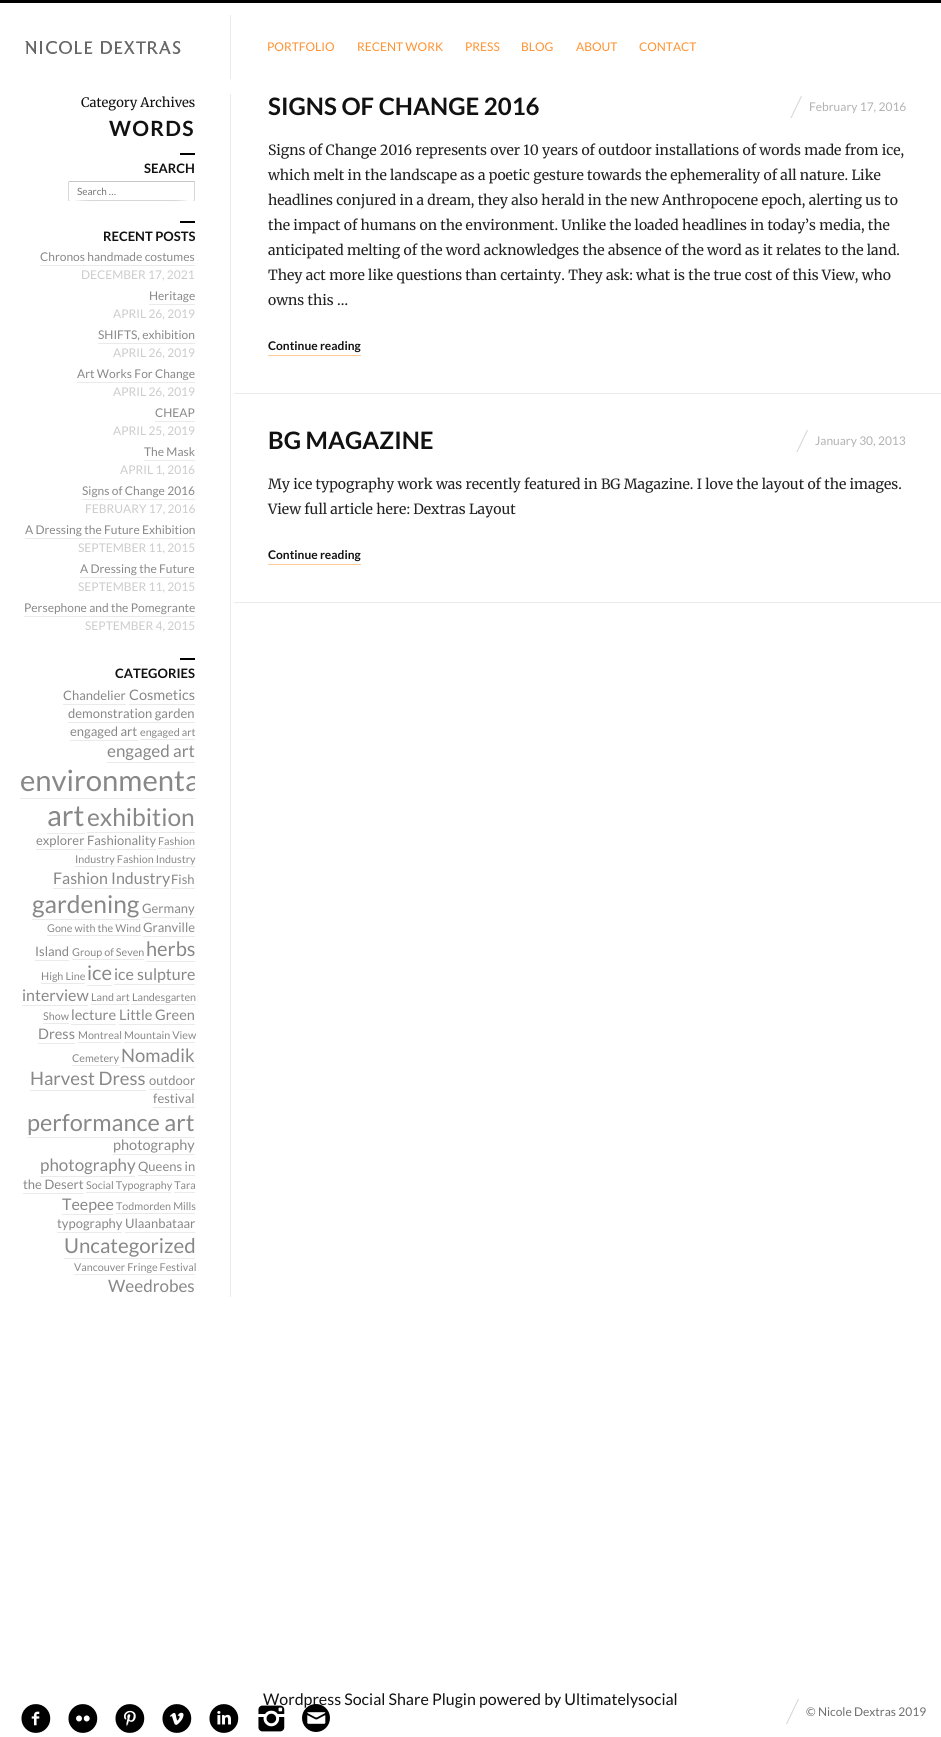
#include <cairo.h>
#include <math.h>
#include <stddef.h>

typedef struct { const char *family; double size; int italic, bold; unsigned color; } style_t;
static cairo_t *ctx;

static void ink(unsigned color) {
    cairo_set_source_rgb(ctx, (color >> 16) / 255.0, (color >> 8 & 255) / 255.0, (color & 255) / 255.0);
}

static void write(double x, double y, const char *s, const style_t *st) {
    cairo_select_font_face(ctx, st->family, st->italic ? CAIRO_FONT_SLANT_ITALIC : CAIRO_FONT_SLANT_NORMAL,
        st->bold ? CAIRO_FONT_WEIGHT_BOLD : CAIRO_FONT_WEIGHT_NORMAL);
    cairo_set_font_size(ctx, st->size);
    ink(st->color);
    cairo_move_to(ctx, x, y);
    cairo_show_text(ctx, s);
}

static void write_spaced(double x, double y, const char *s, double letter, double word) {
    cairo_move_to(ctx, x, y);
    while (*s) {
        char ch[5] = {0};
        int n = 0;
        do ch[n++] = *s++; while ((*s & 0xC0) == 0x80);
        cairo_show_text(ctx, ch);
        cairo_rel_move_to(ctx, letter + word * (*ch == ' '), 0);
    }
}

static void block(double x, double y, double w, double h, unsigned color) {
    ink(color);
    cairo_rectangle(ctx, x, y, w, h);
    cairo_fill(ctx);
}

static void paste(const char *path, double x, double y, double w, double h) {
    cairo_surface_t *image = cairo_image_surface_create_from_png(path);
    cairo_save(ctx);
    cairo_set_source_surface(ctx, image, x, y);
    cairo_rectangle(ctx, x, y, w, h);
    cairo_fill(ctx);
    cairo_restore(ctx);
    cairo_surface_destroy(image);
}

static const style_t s1 = {"Lato", 12, 0, 0, 0xff9231};
static const style_t s2 = {"Merriweather Light", 13, 0, 0, 0x111111};
static const style_t s3 = {"Lato", 13, 0, 1, 0x111111};
static const style_t s4 = {"Lato", 10, 0, 0, 0x757575};
static const style_t s5 = {"Lato", 12, 0, 0, 0x888888};
static const style_t s6 = {"Lato", 12, 0, 0, 0xcccccc};
static const style_t s7 = {"Lato", 13, 0, 0, 0x888888};
static const style_t s8 = {"Lato", 14.5, 0, 0, 0x888888};
static const style_t s9 = {"Lato", 10.75, 0, 0, 0x888888};
static const style_t s10 = {"Lato", 17, 0, 0, 0x888888};
static const style_t s11 = {"Lato", 29.25, 0, 0, 0x888888};
static const style_t s12 = {"Lato", 24.5, 0, 0, 0x888888};
static const style_t s13 = {"Lato", 16, 0, 0, 0x888888};
static const style_t s14 = {"Lato", 20, 0, 0, 0x888888};
static const style_t s15 = {"Lato", 18.5, 0, 0, 0x888888};
static const style_t s16 = {"Lato", 23.5, 0, 0, 0x888888};
static const style_t s17 = {"Lato", 20.5, 0, 0, 0x888888};
static const style_t s18 = {"Lato", 24, 0, 1, 0x111111};
static const style_t s19 = {"Lato", 12, 0, 0, 0xb2b2b2};
static const style_t s20 = {"Merriweather Light", 14, 0, 0, 0x222222};
static const style_t s21 = {"Lato", 12, 0, 1, 0x111111};
static const style_t s22 = {"Lato", 16, 0, 0, 0x111111};
static const style_t s23 = {"Lato", 12, 0, 0, 0x6e6e6e};

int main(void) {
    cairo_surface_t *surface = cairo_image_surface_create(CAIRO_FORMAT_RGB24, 941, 1737);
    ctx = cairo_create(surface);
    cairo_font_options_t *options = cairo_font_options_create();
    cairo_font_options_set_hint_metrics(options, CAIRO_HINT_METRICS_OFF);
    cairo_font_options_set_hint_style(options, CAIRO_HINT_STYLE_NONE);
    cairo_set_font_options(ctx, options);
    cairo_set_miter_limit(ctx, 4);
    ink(0xffffff);
    cairo_paint(ctx);
    block(0, 0, 941, 3, 0x000000);
    block(230, 15, 1, 64, 0xebebeb);
    paste("pic1.png", 25, 41, 156, 13);
    write(267, 51, "PORTFOLIO", &s1);
    write(357, 51, "RECENT WORK", &s1);
    write(465, 51, "PRESS", &s1);
    write(521, 51, "BLOG", &s1);
    write(576, 51, "ABOUT", &s1);
    write(639, 51, "CONTACT", &s1);
    block(230, 94, 1, 1203, 0xebebeb);
    write(81, 107, "Category Archives", &s2);
    cairo_select_font_face(ctx, "Lato", CAIRO_FONT_SLANT_NORMAL, CAIRO_FONT_WEIGHT_BOLD);
    cairo_set_font_size(ctx, 21);
    write_spaced(109, 136, "WORDS", 1.25, 0);
    block(180, 153, 15, 2, 0x000000);
    write(144, 173, "SEARCH", &s3);
    block(69, 181, 126, 1, 0xc5c5c5);
    cairo_save(ctx);
    cairo_rectangle(ctx, 15, 153, 180, 48);
    cairo_clip(ctx);
    cairo_new_path(ctx);
    cairo_move_to(ctx, 194.5, 181.5);
    cairo_line_to(ctx, 194.5, 191);
    cairo_curve_to(ctx, 194.5, 207, 197, 200.5, 173, 200.5);
    cairo_line_to(ctx, 90, 200.5);
    cairo_curve_to(ctx, 66, 200.5, 68.5, 207, 68.5, 191);
    cairo_line_to(ctx, 68.5, 181.5);
    ink(0xd7d7d7);
    cairo_set_line_width(ctx, 1);
    cairo_stroke(ctx);
    cairo_restore(ctx);
    write(77, 195, "Search …", &s4);
    block(180, 221, 15, 2, 0x000000);
    write(103, 241, "RECENT POSTS", &s3);
    write(40, 261, "Chronos handmade costumes", &s5);
    block(40, 265, 155, 1, 0xeaeaea);
    write(81, 279, "DECEMBER 17, 2021", &s6);
    write(149, 300, "Heritage", &s5);
    block(149, 304, 46, 1, 0xeaeaea);
    write(113, 318, "APRIL 26, 2019", &s6);
    write(98, 339, "SHIFTS, exhibition", &s5);
    block(98, 343, 97, 1, 0xeaeaea);
    write(113, 357, "APRIL 26, 2019", &s6);
    write(77, 378, "Art Works For Change", &s5);
    block(77, 382, 118, 1, 0xeaeaea);
    write(113, 396, "APRIL 26, 2019", &s6);
    write(155, 417, "CHEAP", &s5);
    block(155, 421, 40, 1, 0xeaeaea);
    write(113, 435, "APRIL 25, 2019", &s6);
    write(144, 456, "The Mask", &s5);
    block(144, 460, 51, 1, 0xeaeaea);
    write(120, 474, "APRIL 1, 2016", &s6);
    write(82, 495, "Signs of Change 2016", &s5);
    block(82, 499, 113, 1, 0xeaeaea);
    write(85, 513, "FEBRUARY 17, 2016", &s6);
    write(25, 534, "A Dressing the Future Exhibition", &s5);
    block(25, 538, 170, 1, 0xeaeaea);
    write(78, 552, "SEPTEMBER 11, 2015", &s6);
    write(80, 573, "A Dressing the Future", &s5);
    block(80, 577, 115, 1, 0xeaeaea);
    write(78, 591, "SEPTEMBER 11, 2015", &s6);
    write(24, 612, "Persephone and the Pomegrante", &s5);
    block(24, 616, 171, 1, 0xeaeaea);
    write(85, 630, "SEPTEMBER 4, 2015", &s6);
    block(180, 658, 15, 2, 0x000000);
    write(115, 678, "CATEGORIES", &s3);
    write(63, 700, "Chandelier", &s7);
    block(63, 704, 63, 1, 0xeaeaea);
    write(129, 700, "Cosmetics", &s8);
    block(129, 704, 66, 1, 0xeaeaea);
    write(68, 718, "demonstration garden", &s7);
    block(68, 722, 127, 1, 0xeaeaea);
    write(70, 736, "engaged art", &s7);
    block(70, 740, 68, 1, 0xeaeaea);
    write(140, 736, "engaged art", &s9);
    block(140, 739, 55, 1, 0xeaeaea);
    write(107, 757, "engaged art", &s10);
    block(107, 762, 88, 1, 0xeaeaea);
    cairo_save(ctx);
    cairo_rectangle(ctx, 15, 658, 180, 639);
    cairo_clip(ctx);
    write(20, 791, "environmenta", &s11);
    cairo_restore(ctx);
    block(20, 798, 175, 1, 0xeaeaea);
    write(47, 826, "art", &s11);
    block(47, 833, 38, 1, 0xeaeaea);
    write(87, 826, "exhibition", &s12);
    block(87, 832, 108, 1, 0xeaeaea);
    write(36, 845, "explorer Fashionality", &s7);
    block(36, 849, 48, 1, 0xeaeaea);
    write(158, 845, "Fashion", &s9);
    block(158, 848, 37, 1, 0xeaeaea);
    block(87, 849, 69, 1, 0xeaeaea);
    write(75, 863, "Industry Fashion Industry", &s9);
    block(75, 866, 40, 1, 0xeaeaea);
    block(117, 866, 78, 1, 0xeaeaea);
    write(53, 884, "Fashion Industry", &s13);
    block(53, 888, 116, 1, 0xeaeaea);
    write(171, 884, "Fish", &s7);
    block(171, 888, 24, 1, 0xeaeaea);
    write(32, 913, "gardening", &s12);
    block(32, 919, 108, 1, 0xeaeaea);
    write(142, 913, "Germany", &s7);
    block(142, 917, 53, 1, 0xeaeaea);
    write(47, 932, "Gone with the Wind", &s9);
    block(47, 935, 94, 1, 0xeaeaea);
    write(143, 932, "Granville", &s7);
    block(143, 936, 52, 1, 0xeaeaea);
    write(35, 956, "Island", &s7);
    block(35, 960, 34, 1, 0xeaeaea);
    write(72, 956, "Group of Seven", &s9);
    block(72, 959, 72, 1, 0xeaeaea);
    write(146, 956, "herbs", &s14);
    block(146, 961, 49, 1, 0xeaeaea);
    write(41, 980, "High Line", &s9);
    block(41, 983, 44, 1, 0xeaeaea);
    write(87, 980, "ice", &s14);
    block(87, 985, 25, 1, 0xeaeaea);
    write(114, 980, "ice sulpture", &s13);
    block(114, 984, 81, 1, 0xeaeaea);
    write(22, 1001, "interview", &s13);
    block(22, 1005, 66, 1, 0xeaeaea);
    write(91, 1001, "Land art Landesgarten", &s9);
    block(91, 1004, 38, 1, 0xeaeaea);
    write(43, 1020, "Show", &s9);
    block(131, 1004, 64, 1, 0xeaeaea);
    block(43, 1023, 26, 1, 0xeaeaea);
    write(71, 1020, "lecture", &s8);
    block(71, 1024, 45, 1, 0xeaeaea);
    write(119, 1020, "Little Green", &s8);
    block(119, 1024, 76, 1, 0xeaeaea);
    write(38, 1039, "Dress", &s8);
    block(38, 1043, 37, 1, 0xeaeaea);
    write(78, 1039, "Montreal Mountain View", &s9);
    block(78, 1042, 43, 1, 0xeaeaea);
    write(72, 1062, "Cemetery", &s9);
    block(124, 1042, 71, 1, 0xeaeaea);
    block(72, 1065, 47, 1, 0xeaeaea);
    write(121, 1062, "Nomadik", &s15);
    write(30, 1085, "Harvest Dress", &s15);
    block(121, 1067, 74, 1, 0xeaeaea);
    block(30, 1090, 116, 1, 0xeaeaea);
    write(149, 1085, "outdoor", &s7);
    block(149, 1089, 46, 1, 0xeaeaea);
    write(153, 1103, "festival", &s7);
    block(153, 1107, 42, 1, 0xeaeaea);
    write(27, 1131, "performance art", &s16);
    block(27, 1137, 168, 1, 0xeaeaea);
    write(113, 1150, "photography", &s8);
    block(113, 1154, 82, 1, 0xeaeaea);
    write(40, 1171, "photography", &s10);
    block(40, 1176, 95, 1, 0xeaeaea);
    write(138, 1171, "Queens in", &s7);
    block(138, 1175, 57, 1, 0xeaeaea);
    write(23, 1189, "the Desert", &s7);
    block(23, 1193, 61, 1, 0xeaeaea);
    write(86, 1189, "Social Typography Tara", &s9);
    block(86, 1192, 85, 1, 0xeaeaea);
    block(174, 1192, 21, 1, 0xeaeaea);
    write(62, 1210, "Teepee", &s13);
    block(62, 1214, 51, 1, 0xeaeaea);
    write(116, 1210, "Todmorden Mills", &s9);
    block(116, 1213, 79, 1, 0xeaeaea);
    write(57, 1228, "typography Ulaanbataar", &s7);
    block(57, 1232, 65, 1, 0xeaeaea);
    block(125, 1232, 70, 1, 0xeaeaea);
    write(64, 1253, "Uncategorized", &s17);
    block(64, 1258, 131, 1, 0xeaeaea);
    write(74, 1271, "Vancouver Fringe Festival", &s9);
    block(74, 1274, 121, 1, 0xeaeaea);
    write(108, 1292, "Weedrobes", &s10);
    write(268, 115, "SIGNS OF CHANGE 2016", &s18);
    paste("pic2.png", 790, 96, 12, 22);
    write(809, 111, "February 17, 2016", &s19);
    write(268, 155, "Signs of Change 2016 represents over 10 years of outdoor installations of words made from ice,", &s20);
    write(268, 180, "which melt in the landscape as a poetic gesture towards the ephemerality of all nature. Like", &s20);
    write(268, 205, "headlines conjured in a dream, they also herald in the new Anthropocene epoch, alerting us to", &s20);
    write(268, 230, "the impact of humans on the environment. Unlike the loaded headlines in today’s media, the", &s20);
    write(268, 255, "anticipated melting of the word acknowledges the absence of the word as it relates to the land.", &s20);
    write(268, 280, "They act more like questions than certainty. They ask: what is the true cost of this View, who", &s20);
    write(268, 305, "owns this …", &s20);
    write(268, 350, "Continue reading", &s21);
    block(268, 355, 93, 1, 0xffcc99);
    block(234, 393, 707, 1, 0xeaeaea);
    write(268, 449, "BG MAGAZINE", &s18);
    paste("pic2.png", 796, 430, 12, 22);
    write(815, 445, "January 30, 2013", &s19);
    write(268, 489, "My ice typography work was recently featured in BG Magazine. I love the layout of the images.", &s20);
    write(268, 514, "View full article here: Dextras Layout", &s20);
    write(268, 559, "Continue reading", &s21);
    block(268, 564, 93, 1, 0xffcc99);
    block(234, 602, 707, 1, 0xeaeaea);
    write(263, 1705, "Wordpress Social Share Plugin powered by Ultimatelysocial", &s22);
    paste("pic3.png", 21, 1704, 30, 29);
    paste("pic4.png", 68, 1704, 30, 29);
    paste("pic5.png", 115, 1704, 30, 29);
    paste("pic6.png", 162, 1704, 30, 29);
    paste("pic7.png", 209, 1704, 30, 29);
    paste("pic8.png", 258, 1705, 27, 27);
    ink(0x000000);
    cairo_arc(ctx, 316, 1718, 14, 0, 2 * M_PI);
    cairo_fill(ctx);
    paste("pic9.png", 307, 1712, 19, 12);
    paste("pic10.png", 786, 1699, 13, 25);
    write(806, 1716, "© Nicole Dextras 2019", &s23);
    cairo_surface_write_to_png(surface, "screenshot.png");
    cairo_font_options_destroy(options);
    cairo_destroy(ctx);
    cairo_surface_destroy(surface);
    return 0;
}
